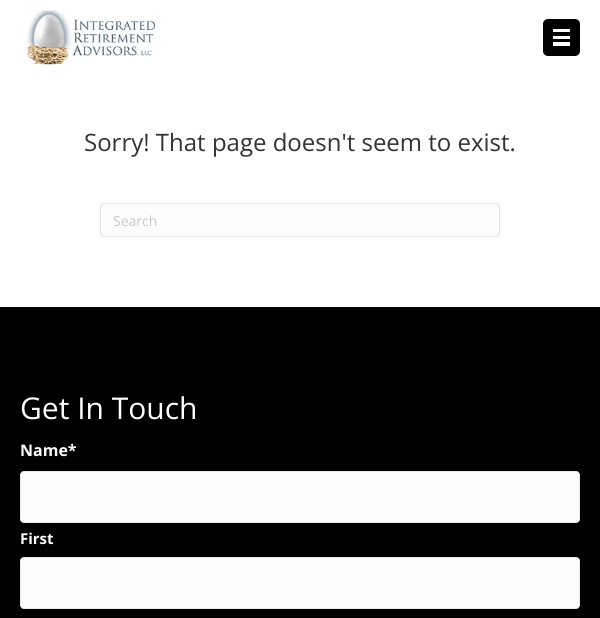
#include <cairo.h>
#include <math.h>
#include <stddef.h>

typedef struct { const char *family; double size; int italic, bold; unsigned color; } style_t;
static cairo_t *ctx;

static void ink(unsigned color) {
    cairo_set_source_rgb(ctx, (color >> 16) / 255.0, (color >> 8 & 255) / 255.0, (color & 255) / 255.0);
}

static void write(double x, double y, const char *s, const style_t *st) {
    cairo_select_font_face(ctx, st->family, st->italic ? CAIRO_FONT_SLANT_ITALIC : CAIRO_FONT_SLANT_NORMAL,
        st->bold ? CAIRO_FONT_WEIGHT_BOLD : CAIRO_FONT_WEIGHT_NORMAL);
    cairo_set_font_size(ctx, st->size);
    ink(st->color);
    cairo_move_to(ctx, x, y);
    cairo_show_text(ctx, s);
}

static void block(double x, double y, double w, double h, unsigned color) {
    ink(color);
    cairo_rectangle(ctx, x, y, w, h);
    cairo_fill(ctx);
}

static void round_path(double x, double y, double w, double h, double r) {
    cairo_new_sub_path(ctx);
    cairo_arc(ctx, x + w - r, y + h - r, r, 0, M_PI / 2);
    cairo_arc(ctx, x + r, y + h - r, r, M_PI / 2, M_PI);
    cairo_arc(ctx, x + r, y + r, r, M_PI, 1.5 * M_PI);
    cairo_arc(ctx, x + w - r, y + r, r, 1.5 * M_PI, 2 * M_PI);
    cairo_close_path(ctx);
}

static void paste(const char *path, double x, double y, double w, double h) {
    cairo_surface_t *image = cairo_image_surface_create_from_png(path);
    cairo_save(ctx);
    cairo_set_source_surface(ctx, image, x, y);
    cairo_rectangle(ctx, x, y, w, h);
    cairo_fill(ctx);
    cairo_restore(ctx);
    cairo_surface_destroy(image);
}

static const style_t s1 = {"Open Sans", 24, 0, 0, 0x333333};
static const style_t s2 = {"Open Sans", 14, 0, 0, 0xcacaca};
static const style_t s3 = {"Open Sans", 30, 0, 0, 0xffffff};
static const style_t s4 = {"Open Sans", 16, 0, 1, 0xffffff};
static const style_t s5 = {"Open Sans", 15, 0, 1, 0xffffff};

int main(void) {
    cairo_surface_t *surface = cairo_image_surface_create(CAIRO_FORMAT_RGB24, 600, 618);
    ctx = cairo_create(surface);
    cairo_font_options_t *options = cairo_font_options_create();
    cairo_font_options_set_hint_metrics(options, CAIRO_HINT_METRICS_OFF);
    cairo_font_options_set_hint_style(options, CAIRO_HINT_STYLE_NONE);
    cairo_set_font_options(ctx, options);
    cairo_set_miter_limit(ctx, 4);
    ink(0xffffff);
    cairo_paint(ctx);
    paste("pic1.png", 26, 10, 130, 56);
    ink(0x000000);
    round_path(543, 19, 37, 37, 5);
    cairo_fill(ctx);
    block(553, 29, 17, 3, 0xffffff);
    block(553, 36, 17, 3, 0xffffff);
    block(553, 42, 17, 4, 0xffffff);
    write(84, 151, "Sorry! That page doesn't seem to exist.", &s1);
    ink(0xfcfcfc);
    round_path(100.5, 203.5, 399, 33, 3.5);
    cairo_fill_preserve(ctx);
    ink(0xe6e6e6);
    cairo_set_line_width(ctx, 1);
    cairo_stroke(ctx);
    write(113, 226, "Search", &s2);
    block(0, 307, 600, 311, 0x000000);
    write(20, 419, "Get In Touch", &s3);
    write(20, 456, "Name*", &s4);
    ink(0xfcfcfc);
    round_path(20.5, 471.5, 559, 51, 3.5);
    cairo_fill_preserve(ctx);
    ink(0xe6e6e6);
    cairo_stroke(ctx);
    write(20, 544, "First", &s5);
    ink(0xfcfcfc);
    round_path(20.5, 557.5, 559, 51, 3.5);
    cairo_fill_preserve(ctx);
    ink(0xe6e6e6);
    cairo_stroke(ctx);
    cairo_surface_write_to_png(surface, "screenshot.png");
    cairo_font_options_destroy(options);
    cairo_destroy(ctx);
    cairo_surface_destroy(surface);
    return 0;
}
